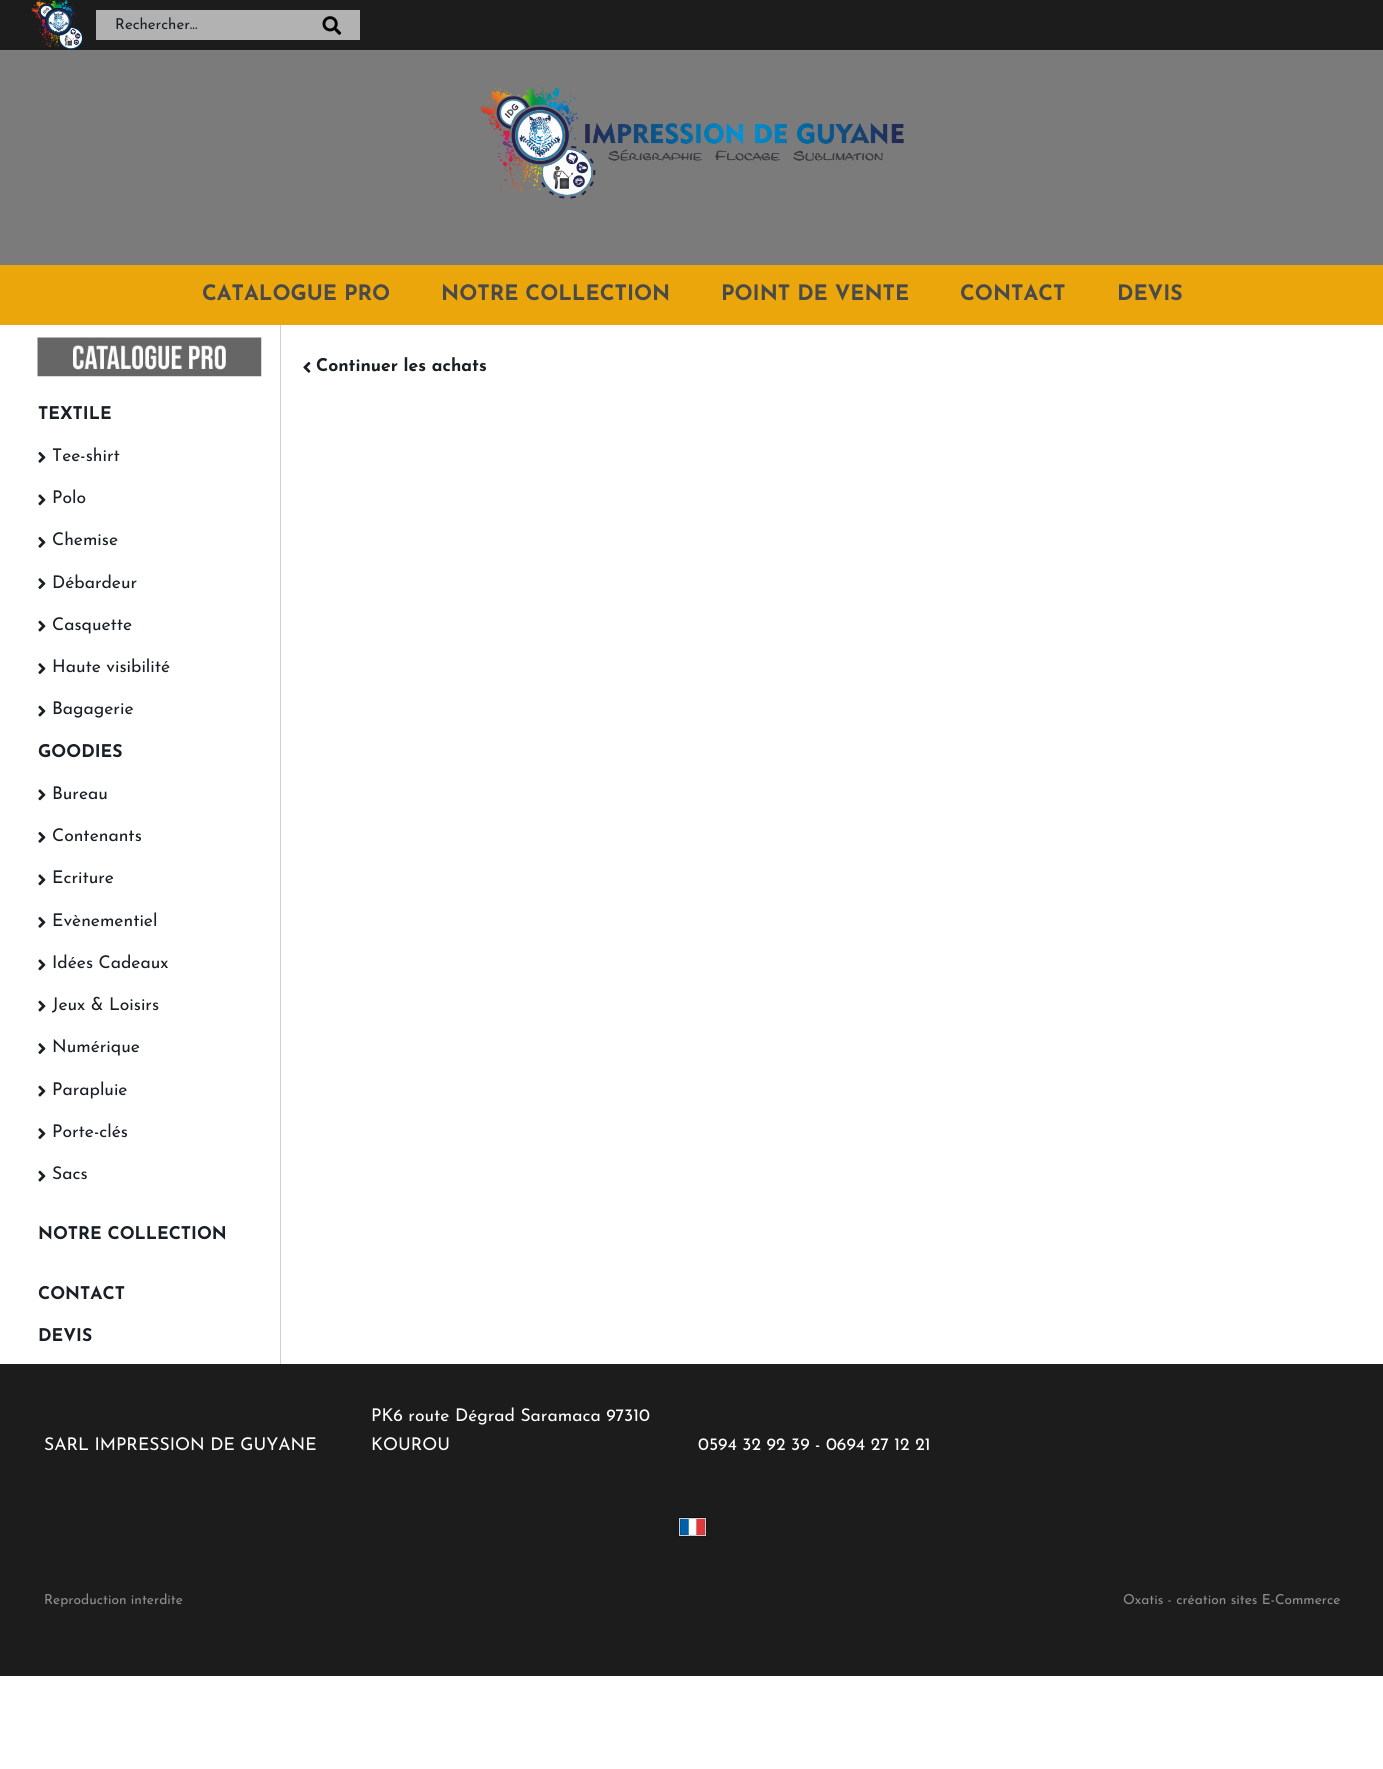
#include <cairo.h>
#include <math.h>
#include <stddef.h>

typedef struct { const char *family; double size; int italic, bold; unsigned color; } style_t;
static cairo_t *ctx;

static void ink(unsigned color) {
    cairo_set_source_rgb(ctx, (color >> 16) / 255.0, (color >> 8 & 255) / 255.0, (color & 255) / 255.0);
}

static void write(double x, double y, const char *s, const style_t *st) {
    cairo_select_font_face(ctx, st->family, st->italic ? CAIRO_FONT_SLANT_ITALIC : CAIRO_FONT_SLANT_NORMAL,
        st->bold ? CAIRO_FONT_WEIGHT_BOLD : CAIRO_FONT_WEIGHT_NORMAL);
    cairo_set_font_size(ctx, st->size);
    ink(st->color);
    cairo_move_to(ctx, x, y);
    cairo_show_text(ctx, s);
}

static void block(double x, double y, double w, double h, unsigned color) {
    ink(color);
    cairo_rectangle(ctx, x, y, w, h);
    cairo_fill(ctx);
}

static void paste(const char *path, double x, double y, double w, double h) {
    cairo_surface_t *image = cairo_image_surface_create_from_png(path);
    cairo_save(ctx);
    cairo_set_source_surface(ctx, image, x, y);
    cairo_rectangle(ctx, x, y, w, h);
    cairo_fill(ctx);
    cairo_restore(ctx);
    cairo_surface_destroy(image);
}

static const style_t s1 = {"Josefin Sans", 15, 0, 0, 0x1a1f26};
static const style_t s2 = {"Josefin Sans", 21.25, 0, 1, 0x4a4a4a};
static const style_t s3 = {"Josefin Sans", 17.5, 0, 1, 0x1a1f26};
static const style_t s4 = {"Josefin Sans", 17.5, 0, 0, 0x1a1f26};
static const style_t s5 = {"Josefin Sans", 17.5, 0, 0, 0xffffff};
static const style_t s6 = {"Josefin Sans", 13.75, 0, 0, 0x8e8e8e};

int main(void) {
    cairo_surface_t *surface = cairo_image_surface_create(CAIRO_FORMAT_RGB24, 1383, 1769);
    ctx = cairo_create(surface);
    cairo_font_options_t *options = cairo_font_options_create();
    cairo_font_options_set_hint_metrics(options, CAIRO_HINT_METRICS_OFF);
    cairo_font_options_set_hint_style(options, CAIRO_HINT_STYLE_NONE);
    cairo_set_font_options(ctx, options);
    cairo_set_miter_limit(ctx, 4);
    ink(0xffffff);
    cairo_paint(ctx);
    block(0, 50, 1383, 215, 0x7b7b7c);
    block(0, 0, 1383, 50, 0x1c1c1c);
    paste("pic1.png", 31, 0, 53, 50);
    block(96, 10, 264, 30, 0xb2b2b2);
    write(115, 29, "Rechercher...", &s1);
    paste("pic2.png", 322, 16, 20, 19);
    paste("pic3.png", 480, 87, 424, 112);
    block(0, 265, 1383, 60, 0xeba60b);
    write(202, 300, "CATALOGUE PRO", &s2);
    write(441, 300, "NOTRE COLLECTION", &s2);
    write(721, 300, "POINT DE VENTE", &s2);
    write(960, 300, "CONTACT", &s2);
    write(1117, 300, "DEVIS", &s2);
    paste("pic4.png", 303, 361, 8, 12);
    write(316, 371, "Continuer les achats", &s3);
    block(280, 325, 1, 1039, 0xd0d0d0);
    paste("pic5.png", 37, 337, 225, 40);
    write(38, 419, "TEXTILE", &s3);
    paste("pic6.png", 38, 451, 8, 12);
    write(52, 461, "Tee-shirt", &s4);
    paste("pic7.png", 38, 494, 8, 12);
    write(52, 503, "Polo", &s4);
    paste("pic6.png", 38, 536, 8, 12);
    write(52, 545, "Chemise", &s4);
    paste("pic8.png", 38, 578, 8, 11);
    write(52, 588, "Débardeur", &s4);
    paste("pic9.png", 38, 620, 8, 12);
    write(52, 630, "Casquette", &s4);
    paste("pic8.png", 38, 663, 8, 11);
    write(52, 672, "Haute visibilité", &s4);
    paste("pic9.png", 38, 705, 8, 12);
    write(52, 714, "Bagagerie", &s4);
    write(38, 757, "GOODIES", &s3);
    paste("pic7.png", 38, 789, 8, 12);
    write(52, 799, "Bureau", &s4);
    paste("pic6.png", 38, 831, 8, 12);
    write(52, 841, "Contenants", &s4);
    paste("pic7.png", 38, 874, 8, 12);
    write(52, 883, "Ecriture", &s4);
    paste("pic6.png", 38, 916, 8, 12);
    write(52, 926, "Evènementiel", &s4);
    paste("pic7.png", 38, 959, 8, 12);
    write(52, 968, "Idées Cadeaux", &s4);
    paste("pic9.png", 38, 1000, 8, 12);
    write(52, 1010, "Jeux & Loisirs", &s4);
    paste("pic8.png", 38, 1043, 8, 11);
    write(52, 1052, "Numérique", &s4);
    paste("pic9.png", 38, 1085, 8, 12);
    write(52, 1095, "Parapluie", &s4);
    paste("pic8.png", 38, 1128, 8, 11);
    write(52, 1137, "Porte-clés", &s4);
    paste("pic9.png", 38, 1170, 8, 12);
    write(52, 1179, "Sacs", &s4);
    write(38, 1239, "NOTRE COLLECTION", &s3);
    write(38, 1299, "CONTACT", &s3);
    write(38, 1341, "DEVIS", &s3);
    block(0, 1364, 1383, 312, 0x1c1c1c);
    write(44, 1450, "SARL IMPRESSION DE GUYANE", &s5);
    write(371, 1421, "PK6 route Dégrad Saramaca 97310", &s5);
    write(371, 1450, "KOUROU", &s5);
    write(698, 1450, "0594 32 92 39 - 0694 27 12 21", &s5);
    paste("pic10.png", 678, 1517, 29, 20);
    cairo_rectangle(ctx, 679.5, 1518.5, 26, 17);
    ink(0xd0d0d0);
    cairo_set_line_width(ctx, 1);
    cairo_stroke(ctx);
    write(44, 1604, "Reproduction interdite", &s6);
    write(1123, 1604, "Oxatis - création sites E-Commerce", &s6);
    cairo_surface_write_to_png(surface, "screenshot.png");
    cairo_font_options_destroy(options);
    cairo_destroy(ctx);
    cairo_surface_destroy(surface);
    return 0;
}
